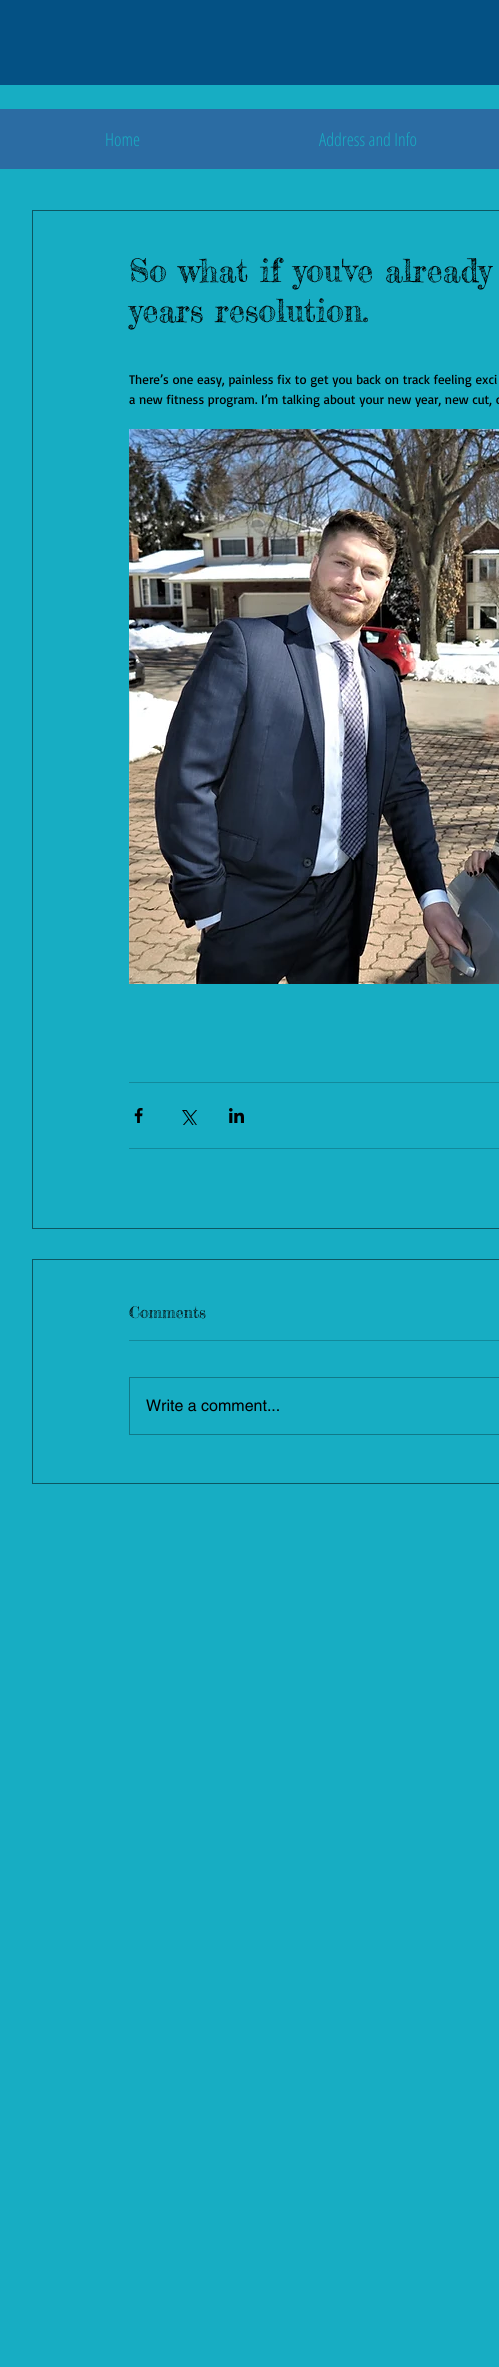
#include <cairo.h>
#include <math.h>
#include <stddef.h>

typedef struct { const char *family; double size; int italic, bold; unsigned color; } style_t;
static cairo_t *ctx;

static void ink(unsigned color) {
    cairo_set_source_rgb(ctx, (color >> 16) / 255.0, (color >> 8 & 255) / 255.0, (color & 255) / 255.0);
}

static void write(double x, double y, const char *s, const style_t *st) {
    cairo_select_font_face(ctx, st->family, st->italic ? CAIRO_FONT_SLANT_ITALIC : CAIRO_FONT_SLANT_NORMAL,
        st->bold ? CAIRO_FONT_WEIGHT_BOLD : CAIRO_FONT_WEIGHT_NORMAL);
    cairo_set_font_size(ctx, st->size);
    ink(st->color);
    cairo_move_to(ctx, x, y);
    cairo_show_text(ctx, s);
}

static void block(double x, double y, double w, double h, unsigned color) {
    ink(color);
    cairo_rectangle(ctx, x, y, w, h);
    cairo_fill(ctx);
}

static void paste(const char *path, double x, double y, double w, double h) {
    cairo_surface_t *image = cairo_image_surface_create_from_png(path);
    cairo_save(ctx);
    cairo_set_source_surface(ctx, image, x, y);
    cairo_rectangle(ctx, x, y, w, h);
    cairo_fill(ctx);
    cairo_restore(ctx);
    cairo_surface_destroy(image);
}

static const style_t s1 = {"Open Sans Condensed Light", 18, 0, 0, 0x17adc3};
static const style_t s2 = {"Fredericka the Great", 32, 0, 0, 0x000000};
static const style_t s3 = {"Basic", 13, 0, 0, 0x000000};
static const style_t s4 = {"Fredericka the Great", 16, 0, 0, 0x000000};
static const style_t s5 = {"helvetica", 16, 0, 0, 0x000000};

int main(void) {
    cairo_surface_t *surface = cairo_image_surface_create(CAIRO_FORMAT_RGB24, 499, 2367);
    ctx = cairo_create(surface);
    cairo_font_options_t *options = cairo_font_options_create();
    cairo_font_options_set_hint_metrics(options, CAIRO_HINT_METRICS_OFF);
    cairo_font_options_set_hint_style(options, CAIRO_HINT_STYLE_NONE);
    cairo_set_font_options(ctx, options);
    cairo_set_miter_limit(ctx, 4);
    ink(0x17adc3);
    cairo_paint(ctx);
    block(0, 0, 499, 85, 0x045184);
    block(0, 109, 499, 60, 0x2b6ca3);
    write(105, 146, "Home", &s1);
    write(319, 146, "Address and Info", &s1);
    cairo_rectangle(ctx, 32.5, 210.5, 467, 1018);
    ink(0x0c5762);
    cairo_set_line_width(ctx, 1);
    cairo_stroke(ctx);
    write(129, 282, "So what if you've already", &s2);
    write(129, 322, "years resolution.", &s2);
    write(129, 384, "There’s one easy, painless fix to get you back on track feeling exci", &s3);
    write(129, 404, "a new fitness program. I’m talking about your new year, new cut, c", &s3);
    paste("pic1.png", 129, 429, 370, 555);
    block(129, 1082, 370, 1, 0x128a9c);
    paste("pic2.png", 134, 1108, 9, 15);
    paste("pic3.png", 182, 1110, 15, 15);
    paste("pic4.png", 229, 1108, 15, 15);
    block(129, 1148, 370, 1, 0x128a9c);
    cairo_rectangle(ctx, 32.5, 1259.5, 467, 224);
    ink(0x0c5762);
    cairo_stroke(ctx);
    write(129, 1318, "Comments", &s4);
    block(129, 1340, 370, 1, 0x128a9c);
    cairo_rectangle(ctx, 129.5, 1377.5, 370, 57);
    ink(0x107989);
    cairo_stroke(ctx);
    write(146, 1411, "Write a comment...", &s5);
    cairo_surface_write_to_png(surface, "screenshot.png");
    cairo_font_options_destroy(options);
    cairo_destroy(ctx);
    cairo_surface_destroy(surface);
    return 0;
}
